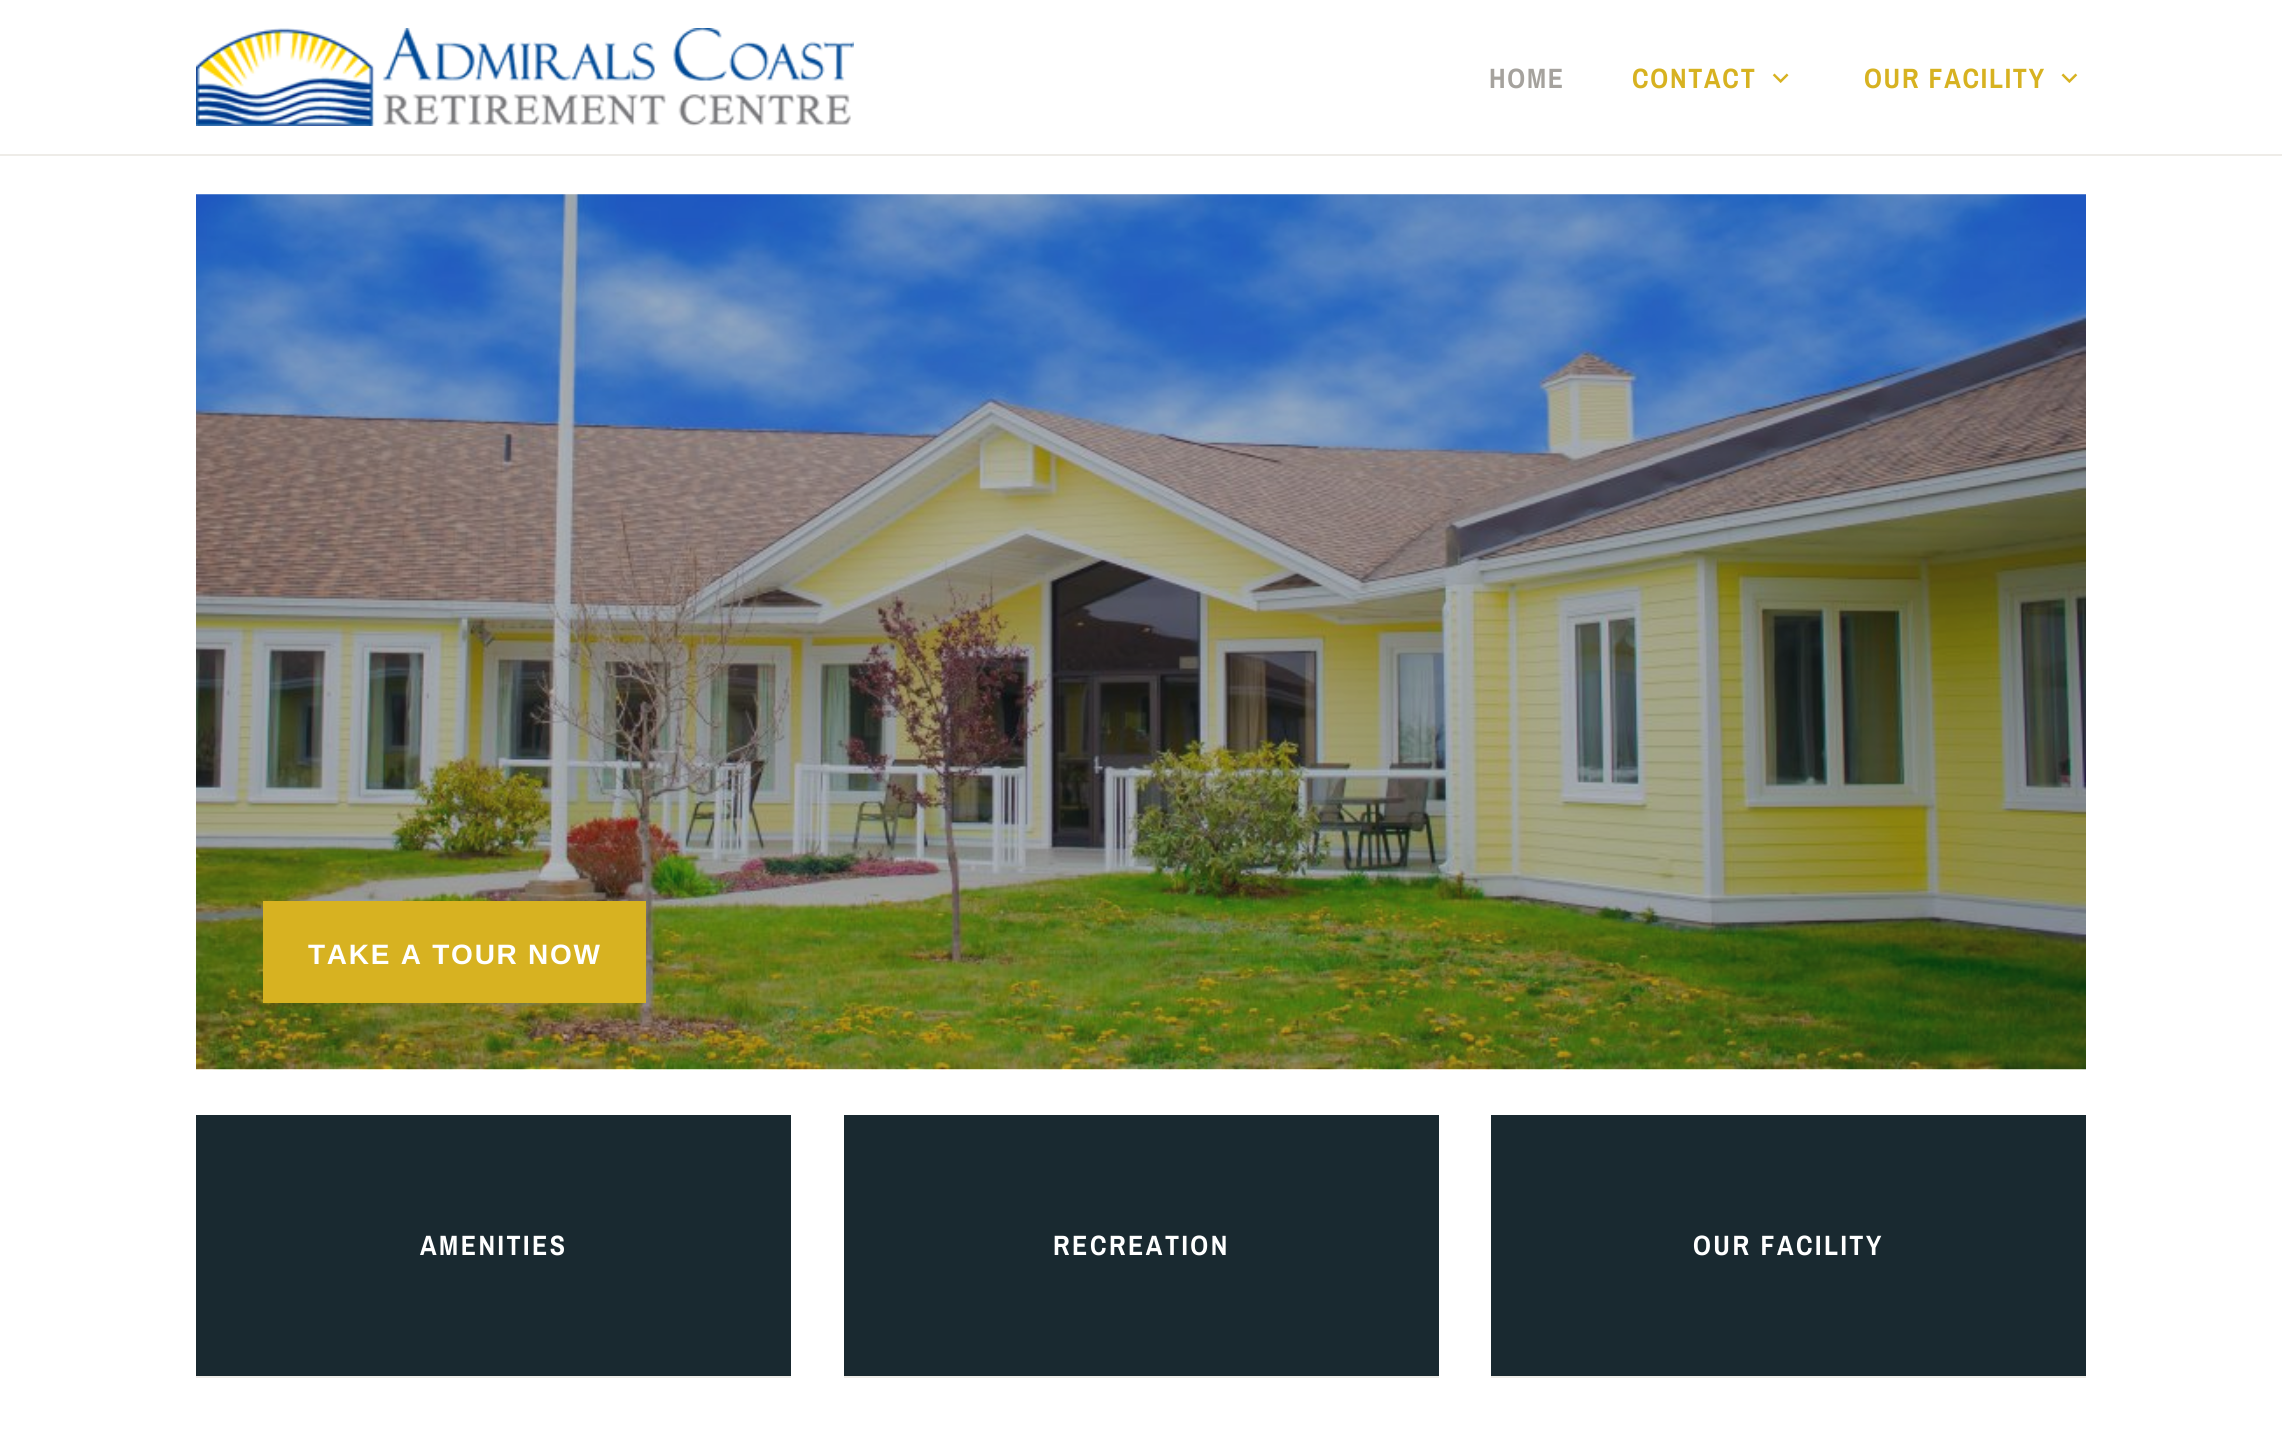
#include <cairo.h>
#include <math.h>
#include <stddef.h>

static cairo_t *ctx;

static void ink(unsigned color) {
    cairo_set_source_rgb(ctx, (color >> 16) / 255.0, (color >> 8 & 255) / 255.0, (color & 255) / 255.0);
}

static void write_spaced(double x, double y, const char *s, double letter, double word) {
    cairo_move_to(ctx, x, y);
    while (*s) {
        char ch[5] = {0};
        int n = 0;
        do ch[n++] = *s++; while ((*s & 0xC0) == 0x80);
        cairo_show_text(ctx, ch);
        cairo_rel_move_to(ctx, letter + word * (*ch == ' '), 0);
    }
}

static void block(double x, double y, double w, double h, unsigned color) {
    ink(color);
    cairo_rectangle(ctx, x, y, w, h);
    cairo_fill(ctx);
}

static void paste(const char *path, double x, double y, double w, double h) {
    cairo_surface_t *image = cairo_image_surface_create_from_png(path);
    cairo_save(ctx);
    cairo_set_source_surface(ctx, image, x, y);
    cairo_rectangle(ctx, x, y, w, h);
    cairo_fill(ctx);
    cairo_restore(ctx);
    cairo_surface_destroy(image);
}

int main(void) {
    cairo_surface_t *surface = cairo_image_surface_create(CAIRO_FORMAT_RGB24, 2282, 1437);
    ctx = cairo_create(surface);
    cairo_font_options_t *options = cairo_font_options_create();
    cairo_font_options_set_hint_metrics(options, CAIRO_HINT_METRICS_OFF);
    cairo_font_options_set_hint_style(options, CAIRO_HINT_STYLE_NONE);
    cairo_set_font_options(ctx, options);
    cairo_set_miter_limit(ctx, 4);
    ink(0xffffff);
    cairo_paint(ctx);
    block(0, 154, 2282, 2, 0xeeece8);
    paste("pic1.png", 196, 28, 658, 98);
    cairo_select_font_face(ctx, "Archivo Narrow", CAIRO_FONT_SLANT_NORMAL, CAIRO_FONT_WEIGHT_BOLD);
    cairo_set_font_size(ctx, 28);
    ink(0xa5a29d);
    write_spaced(1489, 88, "HOME", 1.75, 0);
    ink(0xd7b221);
    write_spaced(1632, 88, "CONTACT", 1.75, 0);
    paste("pic2.png", 1772, 73, 17, 10);
    write_spaced(1864, 88, "OUR FACILITY", 1.75, 0);
    paste("pic3.png", 2061, 73, 17, 10);
    paste("pic4.png", 196, 194, 1890, 876);
    block(263, 901, 383, 102, 0xd7b221);
    cairo_select_font_face(ctx, "Liberation Sans", CAIRO_FONT_SLANT_NORMAL, CAIRO_FONT_WEIGHT_BOLD);
    ink(0xffffff);
    write_spaced(308, 964, "TAKE A TOUR NOW", 1.75, 0);
    block(196, 1115, 595, 261, 0x192930);
    block(196, 1376, 595, 2, 0xeeece8);
    cairo_select_font_face(ctx, "Archivo Narrow", CAIRO_FONT_SLANT_NORMAL, CAIRO_FONT_WEIGHT_BOLD);
    ink(0xffffff);
    write_spaced(420, 1255, "AMENITIES", 2.5, 0);
    block(844, 1115, 595, 261, 0x192930);
    block(844, 1376, 595, 2, 0xeeece8);
    ink(0xffffff);
    write_spaced(1053, 1255, "RECREATION", 2.5, 0);
    block(1491, 1115, 595, 261, 0x192930);
    block(1491, 1376, 595, 2, 0xeeece8);
    ink(0xffffff);
    write_spaced(1693, 1255, "OUR FACILITY", 2.5, 0);
    cairo_surface_write_to_png(surface, "screenshot.png");
    cairo_font_options_destroy(options);
    cairo_destroy(ctx);
    cairo_surface_destroy(surface);
    return 0;
}
